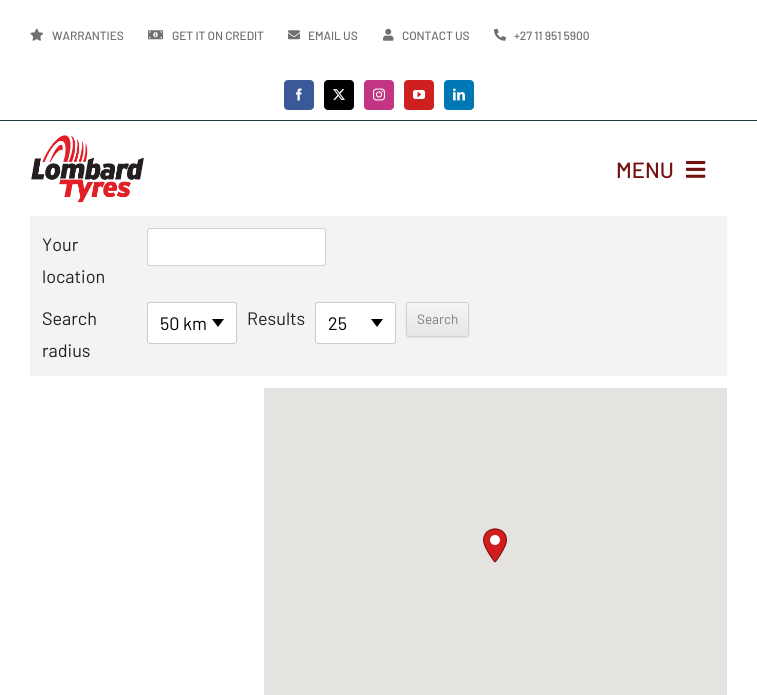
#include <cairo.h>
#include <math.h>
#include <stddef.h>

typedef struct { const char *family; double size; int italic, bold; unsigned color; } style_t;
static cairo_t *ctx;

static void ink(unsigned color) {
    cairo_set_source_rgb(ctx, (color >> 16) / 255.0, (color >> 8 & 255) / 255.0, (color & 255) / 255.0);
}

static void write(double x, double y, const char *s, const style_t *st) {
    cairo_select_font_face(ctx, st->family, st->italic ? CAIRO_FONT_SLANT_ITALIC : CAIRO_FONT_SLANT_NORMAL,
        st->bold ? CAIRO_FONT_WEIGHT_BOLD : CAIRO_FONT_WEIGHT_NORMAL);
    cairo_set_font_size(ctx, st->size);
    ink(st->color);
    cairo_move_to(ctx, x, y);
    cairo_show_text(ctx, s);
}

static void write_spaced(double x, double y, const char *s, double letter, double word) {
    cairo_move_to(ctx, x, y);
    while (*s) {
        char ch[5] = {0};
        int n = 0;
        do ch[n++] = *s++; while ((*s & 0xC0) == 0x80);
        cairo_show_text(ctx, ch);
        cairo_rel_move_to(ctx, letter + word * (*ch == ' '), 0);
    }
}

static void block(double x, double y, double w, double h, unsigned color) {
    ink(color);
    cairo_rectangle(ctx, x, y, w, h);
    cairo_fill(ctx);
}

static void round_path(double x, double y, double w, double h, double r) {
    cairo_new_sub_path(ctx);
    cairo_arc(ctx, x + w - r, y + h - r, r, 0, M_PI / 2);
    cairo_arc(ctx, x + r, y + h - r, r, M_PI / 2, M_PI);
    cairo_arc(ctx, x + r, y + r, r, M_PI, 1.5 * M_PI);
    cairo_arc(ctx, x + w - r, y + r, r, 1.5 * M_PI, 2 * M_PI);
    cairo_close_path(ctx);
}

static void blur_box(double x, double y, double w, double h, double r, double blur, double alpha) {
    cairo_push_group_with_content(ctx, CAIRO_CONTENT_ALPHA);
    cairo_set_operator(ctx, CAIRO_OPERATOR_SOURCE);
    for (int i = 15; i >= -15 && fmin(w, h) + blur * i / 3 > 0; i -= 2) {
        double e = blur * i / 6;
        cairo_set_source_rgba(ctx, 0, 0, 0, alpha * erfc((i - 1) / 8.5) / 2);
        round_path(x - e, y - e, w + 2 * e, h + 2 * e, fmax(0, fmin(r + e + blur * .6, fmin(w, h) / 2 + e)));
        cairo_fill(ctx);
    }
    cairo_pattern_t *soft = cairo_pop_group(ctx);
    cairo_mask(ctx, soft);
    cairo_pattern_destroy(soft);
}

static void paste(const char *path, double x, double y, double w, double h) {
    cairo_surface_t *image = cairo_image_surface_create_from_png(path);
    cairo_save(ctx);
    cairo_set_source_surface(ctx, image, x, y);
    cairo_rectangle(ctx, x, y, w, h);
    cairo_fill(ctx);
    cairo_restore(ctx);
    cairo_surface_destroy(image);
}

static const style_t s1 = {"Barlow Medium", 22, 0, 0, 0x731010};
static const style_t s2 = {"Barlow", 18, 0, 0, 0x1f1f1f};
static const style_t s3 = {"Barlow", 18, 0, 0, 0x000000};
static const style_t s4 = {"Barlow", 13.5, 0, 0, 0x7c7c7c};

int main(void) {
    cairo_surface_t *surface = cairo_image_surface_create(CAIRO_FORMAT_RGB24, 757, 695);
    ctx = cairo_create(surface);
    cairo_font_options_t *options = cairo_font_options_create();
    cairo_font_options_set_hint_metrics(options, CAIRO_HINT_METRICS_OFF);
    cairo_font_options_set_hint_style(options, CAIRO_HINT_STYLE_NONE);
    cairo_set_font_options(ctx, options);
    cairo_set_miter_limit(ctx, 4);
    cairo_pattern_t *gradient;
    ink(0xffffff);
    cairo_paint(ctx);
    block(0, 120, 757, 1, 0x194042);
    paste("pic1.png", 30, 28, 13, 13);
    cairo_select_font_face(ctx, "Barlow Medium", CAIRO_FONT_SLANT_NORMAL, CAIRO_FONT_WEIGHT_NORMAL);
    cairo_set_font_size(ctx, 12);
    ink(0x707070);
    write_spaced(52, 40, "WARRANTIES", -0.1, 0);
    paste("pic2.png", 148, 30, 15, 10);
    write_spaced(172, 40, "GET IT ON CREDIT", -0.1, 0);
    paste("pic3.png", 288, 30, 12, 10);
    write_spaced(308, 40, "EMAIL US", -0.1, 0);
    paste("pic4.png", 383, 28, 11, 13);
    write_spaced(402, 40, "CONTACT US", -0.1, 0);
    paste("pic5.png", 494, 28, 12, 13);
    write_spaced(514, 40, "+27 11 951 5900", -0.1, 0);
    ink(0x3b5998);
    round_path(284.5, 80.5, 29, 29, 3.5);
    cairo_fill_preserve(ctx);
    cairo_set_line_width(ctx, 1);
    cairo_stroke(ctx);
    paste("pic6.png", 296, 88, 6, 13);
    ink(0x000000);
    round_path(324.5, 80.5, 29, 29, 3.5);
    cairo_fill_preserve(ctx);
    cairo_stroke(ctx);
    paste("pic7.png", 333, 89, 12, 11);
    ink(0xc13584);
    round_path(364.5, 80.5, 29, 29, 3.5);
    cairo_fill_preserve(ctx);
    cairo_stroke(ctx);
    paste("pic8.png", 373, 88, 12, 13);
    ink(0xcd201f);
    round_path(404.5, 80.5, 29, 29, 3.5);
    cairo_fill_preserve(ctx);
    cairo_stroke(ctx);
    paste("pic9.png", 413, 90, 12, 9);
    ink(0x0077b5);
    round_path(444.5, 80.5, 29, 29, 3.5);
    cairo_fill_preserve(ctx);
    cairo_stroke(ctx);
    paste("pic10.png", 453, 88, 12, 13);
    paste("pic11.png", 31, 135, 113, 68);
    write(616, 178, "MENU", &s1);
    paste("pic12.png", 686, 160, 20, 18);
    block(30, 216, 697, 160, 0xf4f3f3);
    write(42, 251, "Your", &s2);
    write(42, 283, "location", &s2);
    ink(0xffffff);
    round_path(147.5, 228.5, 178, 37, 2.5);
    cairo_fill_preserve(ctx);
    ink(0xd2d2d2);
    cairo_stroke(ctx);
    write(42, 325, "Search", &s2);
    write(42, 357, "radius", &s2);
    ink(0xffffff);
    round_path(147.5, 302.5, 89, 41, 2.5);
    cairo_fill_preserve(ctx);
    ink(0xcccccc);
    cairo_stroke(ctx);
    write(160, 330, "50 km", &s3);
    cairo_new_path(ctx);
    cairo_move_to(ctx, 212, 319);
    cairo_line_to(ctx, 224, 319);
    cairo_line_to(ctx, 218, 327);
    cairo_close_path(ctx);
    cairo_fill(ctx);
    ink(0xe2e1e1);
    cairo_new_path(ctx);
    cairo_move_to(ctx, 237, 342);
    cairo_line_to(ctx, 236, 343);
    cairo_line_to(ctx, 236.5, 343.5);
    cairo_close_path(ctx);
    cairo_fill(ctx);
    ink(0xe1e1e1);
    cairo_new_path(ctx);
    cairo_move_to(ctx, 147, 342);
    cairo_line_to(ctx, 148, 343);
    cairo_line_to(ctx, 147.5, 343.5);
    cairo_close_path(ctx);
    cairo_fill(ctx);
    write(247, 325, "Results", &s2);
    ink(0xffffff);
    round_path(315.5, 302.5, 80, 41, 2.5);
    cairo_fill_preserve(ctx);
    ink(0xcccccc);
    cairo_stroke(ctx);
    write(328, 330, "25", &s3);
    cairo_new_path(ctx);
    cairo_move_to(ctx, 371, 319);
    cairo_line_to(ctx, 383, 319);
    cairo_line_to(ctx, 377, 327);
    cairo_close_path(ctx);
    cairo_fill(ctx);
    ink(0xe2e1e1);
    cairo_new_path(ctx);
    cairo_move_to(ctx, 396, 342);
    cairo_line_to(ctx, 395, 343);
    cairo_line_to(ctx, 395.5, 343.5);
    cairo_close_path(ctx);
    cairo_fill(ctx);
    ink(0xe1e1e1);
    cairo_new_path(ctx);
    cairo_move_to(ctx, 315, 342);
    cairo_line_to(ctx, 316, 343);
    cairo_line_to(ctx, 315.5, 343.5);
    cairo_close_path(ctx);
    cairo_fill(ctx);
    ink(0x404040);
    blur_box(406, 303, 63, 35, 3, 1, 0.1);
    cairo_save(ctx);
    round_path(406, 302, 63, 35, 3);
    cairo_clip(ctx);
    gradient = cairo_pattern_create_linear(438, 303, 438, 336);
    cairo_pattern_add_color_stop_rgba(gradient, 0, 0.957, 0.957, 0.957, 1);
    cairo_pattern_add_color_stop_rgba(gradient, 1, 0.902, 0.902, 0.902, 1);
    cairo_set_source(ctx, gradient);
    cairo_pattern_destroy(gradient);
    cairo_rectangle(ctx, 406, 303, 63, 33);
    cairo_fill(ctx);
    cairo_restore(ctx);
    round_path(406.5, 302.5, 62, 34, 2.5);
    ink(0xd2d2d2);
    cairo_stroke(ctx);
    write(417, 324, "Search", &s4);
    block(264, 388, 463, 307, 0xe5e3df);
    paste("pic13.png", 483, 528, 24, 35);
    cairo_surface_write_to_png(surface, "screenshot.png");
    cairo_font_options_destroy(options);
    cairo_destroy(ctx);
    cairo_surface_destroy(surface);
    return 0;
}
